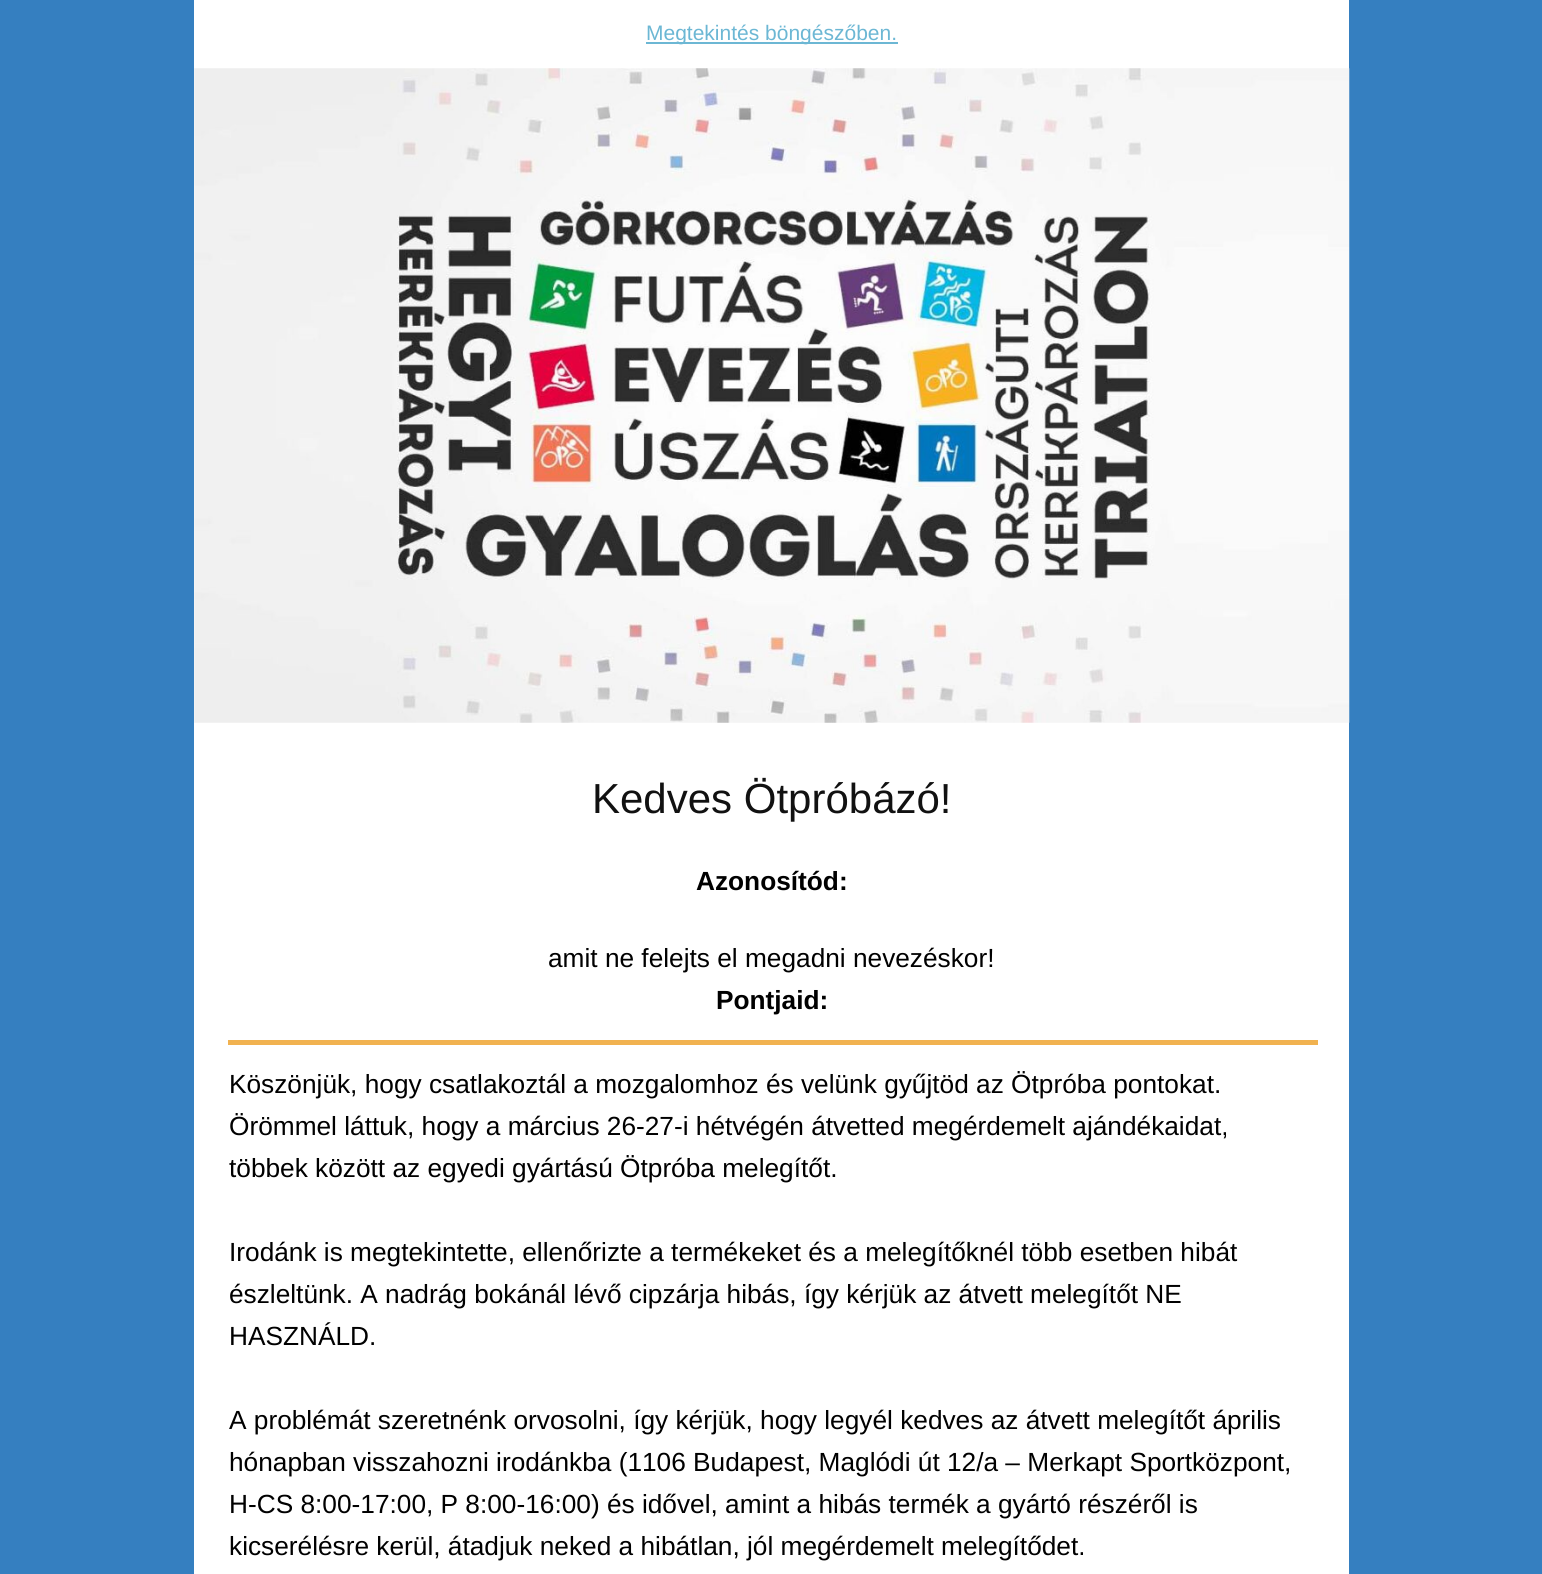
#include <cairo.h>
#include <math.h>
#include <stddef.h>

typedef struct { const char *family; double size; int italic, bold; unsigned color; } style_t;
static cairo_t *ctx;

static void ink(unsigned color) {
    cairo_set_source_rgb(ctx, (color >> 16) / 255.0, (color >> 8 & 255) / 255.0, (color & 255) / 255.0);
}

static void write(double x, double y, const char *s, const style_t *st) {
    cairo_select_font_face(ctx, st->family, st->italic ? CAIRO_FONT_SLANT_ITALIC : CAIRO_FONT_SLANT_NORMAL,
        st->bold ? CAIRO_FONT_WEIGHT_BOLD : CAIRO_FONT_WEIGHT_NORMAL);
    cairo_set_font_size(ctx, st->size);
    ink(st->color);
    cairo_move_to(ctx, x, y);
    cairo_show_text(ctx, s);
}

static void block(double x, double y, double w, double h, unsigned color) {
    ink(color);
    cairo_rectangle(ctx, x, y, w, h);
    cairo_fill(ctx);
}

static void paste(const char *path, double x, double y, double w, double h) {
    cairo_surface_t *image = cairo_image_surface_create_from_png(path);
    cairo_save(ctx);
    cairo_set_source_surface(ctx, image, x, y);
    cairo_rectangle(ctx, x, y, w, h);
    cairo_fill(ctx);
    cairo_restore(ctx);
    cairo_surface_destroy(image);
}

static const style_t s1 = {"Liberation Sans", 21, 0, 0, 0x6cb7d4};
static const style_t s2 = {"Liberation Sans", 42, 0, 0, 0x111111};
static const style_t s3 = {"Liberation Sans", 26.25, 0, 1, 0x000000};
static const style_t s4 = {"Liberation Sans", 26.25, 0, 0, 0x000000};

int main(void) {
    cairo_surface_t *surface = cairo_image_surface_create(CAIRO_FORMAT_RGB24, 1542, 1574);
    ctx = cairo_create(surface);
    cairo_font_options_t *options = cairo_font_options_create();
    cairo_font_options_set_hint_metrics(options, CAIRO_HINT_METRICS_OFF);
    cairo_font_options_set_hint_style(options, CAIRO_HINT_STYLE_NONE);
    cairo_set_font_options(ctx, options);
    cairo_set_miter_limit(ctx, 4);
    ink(0x357fc0);
    cairo_paint(ctx);
    block(194, 0, 1155, 1574, 0xffffff);
    block(646, 42, 252, 2, 0x6cb7d4);
    write(646, 40, "Megtekintés böngészőben.", &s1);
    paste("pic1.png", 194, 68, 1156, 655);
    write(592, 813, "Kedves Ötpróbázó!", &s2);
    write(696, 890, "Azonosítód:", &s3);
    write(548, 967, "amit ne felejts el megadni nevezéskor!", &s4);
    write(716, 1009, "Pontjaid:", &s3);
    block(228, 1040, 1090, 5, 0xf1b250);
    write(229, 1093, "Köszönjük, hogy csatlakoztál a mozgalomhoz és velünk gyűjtöd az Ötpróba pontokat.", &s4);
    write(229, 1135, "Örömmel láttuk, hogy a március 26-27-i hétvégén átvetted megérdemelt ajándékaidat,", &s4);
    write(229, 1177, "többek között az egyedi gyártású Ötpróba melegítőt.", &s4);
    write(229, 1261, "Irodánk is megtekintette, ellenőrizte a termékeket és a melegítőknél több esetben hibát", &s4);
    write(229, 1303, "észleltünk. A nadrág bokánál lévő cipzárja hibás, így kérjük az átvett melegítőt NE", &s4);
    write(229, 1345, "HASZNÁLD.", &s4);
    write(229, 1429, "A problémát szeretnénk orvosolni, így kérjük, hogy legyél kedves az átvett melegítőt április", &s4);
    write(229, 1471, "hónapban visszahozni irodánkba (1106 Budapest, Maglódi út 12/a – Merkapt Sportközpont,", &s4);
    write(229, 1513, "H-CS 8:00-17:00, P 8:00-16:00) és idővel, amint a hibás termék a gyártó részéről is", &s4);
    write(229, 1555, "kicserélésre kerül, átadjuk neked a hibátlan, jól megérdemelt melegítődet.", &s4);
    cairo_surface_write_to_png(surface, "screenshot.png");
    cairo_font_options_destroy(options);
    cairo_destroy(ctx);
    cairo_surface_destroy(surface);
    return 0;
}
